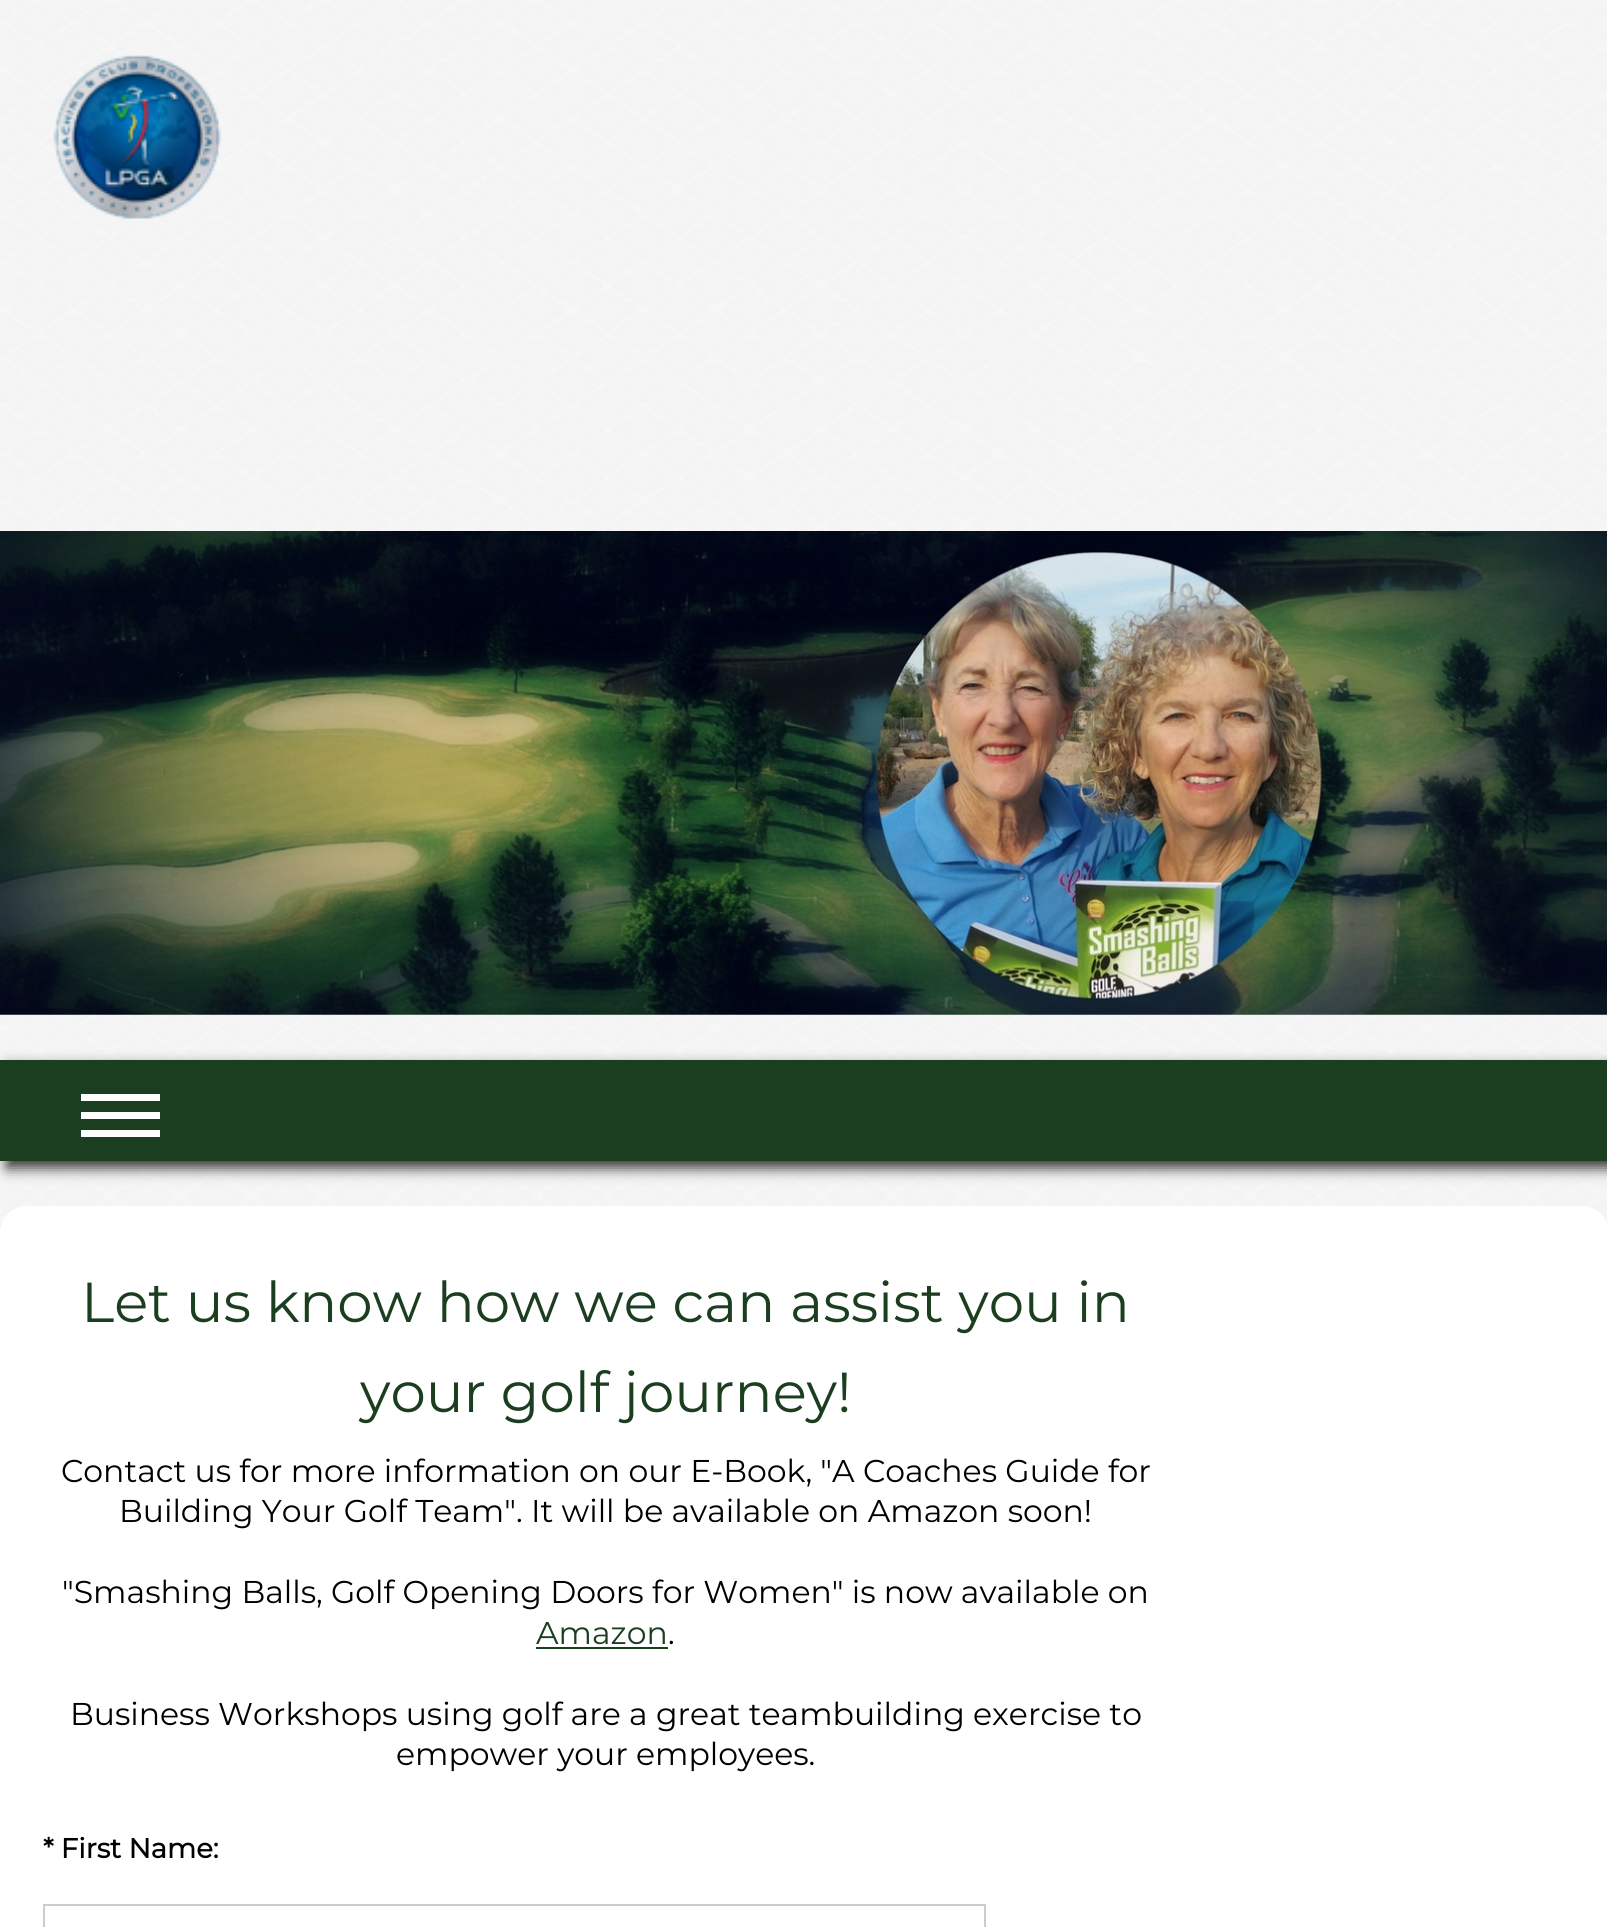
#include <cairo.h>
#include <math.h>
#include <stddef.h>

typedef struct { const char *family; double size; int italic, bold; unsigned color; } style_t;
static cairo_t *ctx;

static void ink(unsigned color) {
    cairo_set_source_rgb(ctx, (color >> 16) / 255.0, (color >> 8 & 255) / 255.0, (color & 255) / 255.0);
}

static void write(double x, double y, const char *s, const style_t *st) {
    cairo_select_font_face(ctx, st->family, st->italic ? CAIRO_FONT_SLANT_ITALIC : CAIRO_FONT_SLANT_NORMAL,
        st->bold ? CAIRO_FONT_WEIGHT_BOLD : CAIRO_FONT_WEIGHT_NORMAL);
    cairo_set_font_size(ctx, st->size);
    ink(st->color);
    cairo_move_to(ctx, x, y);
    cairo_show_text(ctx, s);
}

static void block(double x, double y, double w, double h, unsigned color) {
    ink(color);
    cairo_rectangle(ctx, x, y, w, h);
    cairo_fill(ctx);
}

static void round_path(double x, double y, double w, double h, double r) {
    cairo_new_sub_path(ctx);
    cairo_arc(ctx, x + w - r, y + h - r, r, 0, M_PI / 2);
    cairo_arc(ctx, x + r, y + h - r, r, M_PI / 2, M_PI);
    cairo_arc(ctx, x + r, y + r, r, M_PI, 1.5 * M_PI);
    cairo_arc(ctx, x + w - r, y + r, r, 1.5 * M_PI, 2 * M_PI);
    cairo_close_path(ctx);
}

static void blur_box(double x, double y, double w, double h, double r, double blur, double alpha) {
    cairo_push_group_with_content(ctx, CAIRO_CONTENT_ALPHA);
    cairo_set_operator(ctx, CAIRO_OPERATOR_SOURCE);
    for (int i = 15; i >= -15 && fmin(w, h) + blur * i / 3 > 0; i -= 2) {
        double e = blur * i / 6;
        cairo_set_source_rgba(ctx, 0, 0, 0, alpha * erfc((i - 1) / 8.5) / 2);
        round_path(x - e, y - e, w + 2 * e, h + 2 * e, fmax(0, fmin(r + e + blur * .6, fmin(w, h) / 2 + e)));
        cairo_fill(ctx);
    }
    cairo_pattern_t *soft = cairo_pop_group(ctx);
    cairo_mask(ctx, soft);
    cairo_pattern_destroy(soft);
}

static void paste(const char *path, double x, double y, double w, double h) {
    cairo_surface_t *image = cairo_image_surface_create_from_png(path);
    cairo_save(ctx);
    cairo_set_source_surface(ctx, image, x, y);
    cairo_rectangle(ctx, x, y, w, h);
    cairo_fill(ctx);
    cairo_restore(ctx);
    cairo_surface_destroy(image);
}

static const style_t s1 = {"Montserrat Thin", 56.25, 0, 0, 0x1c3e20};
static const style_t s2 = {"Montserrat Thin", 31.5, 0, 0, 0x000000};
static const style_t s3 = {"Montserrat Thin", 31.5, 0, 0, 0x1c3e20};
static const style_t s4 = {"Montserrat", 27.5, 0, 1, 0x000000};

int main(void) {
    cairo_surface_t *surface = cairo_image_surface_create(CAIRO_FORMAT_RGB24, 1607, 1927);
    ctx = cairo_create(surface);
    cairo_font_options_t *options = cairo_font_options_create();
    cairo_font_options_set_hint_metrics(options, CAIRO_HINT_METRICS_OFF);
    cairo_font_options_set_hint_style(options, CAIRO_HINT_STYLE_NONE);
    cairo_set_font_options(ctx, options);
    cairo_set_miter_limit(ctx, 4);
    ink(0xffffff);
    cairo_paint(ctx);
    paste("pic1.png", 0, 0, 1607, 1233);
    paste("pic2.png", 53, 55, 168, 164);
    paste("pic3.png", 0, 531, 1607, 484);
    ink(0x333333);
    blur_box(7, 1067, 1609, 101, 0, 7, 1);
    block(0, 1060, 1607, 101, 0x1c3e20);
    block(81, 1094, 79, 7, 0xffffff);
    block(81, 1112, 79, 7, 0xffffff);
    block(81, 1130, 79, 7, 0xffffff);
    cairo_new_path(ctx);
    cairo_move_to(ctx, 27, 1206);
    cairo_line_to(ctx, 1582, 1206);
    cairo_curve_to(ctx, 1597, 1206, 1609, 1218, 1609, 1233);
    cairo_line_to(ctx, 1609, 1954);
    cairo_line_to(ctx, 0, 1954);
    cairo_line_to(ctx, 0, 1233);
    cairo_curve_to(ctx, 0, 1218, 12, 1206, 27, 1206);
    cairo_close_path(ctx);
    cairo_fill(ctx);
    write(81, 1322, "Let us know how we can assist you in", &s1);
    write(360, 1412, "your golf journey!", &s1);
    write(61, 1482, "Contact us for more information on our E-Book, \"A Coaches Guide for", &s2);
    write(119, 1522, "Building Your Golf Team\". It will be available on Amazon soon!", &s2);
    write(62, 1603, "\"Smashing Balls, Golf Opening Doors for Women\" is now available on", &s2);
    write(536, 1644, "Amazon", &s3);
    write(668, 1644, ".", &s2);
    block(536, 1647, 132, 2, 0x1c3e20);
    write(70, 1725, "Business Workshops using golf are a great teambuilding exercise to", &s2);
    write(396, 1765, "empower your employees.", &s2);
    write(43, 1858, "* First Name:", &s4);
    cairo_rectangle(ctx, 44, 1905, 941, 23);
    ink(0xcccccc);
    cairo_stroke(ctx);
    cairo_surface_write_to_png(surface, "screenshot.png");
    cairo_font_options_destroy(options);
    cairo_destroy(ctx);
    cairo_surface_destroy(surface);
    return 0;
}
